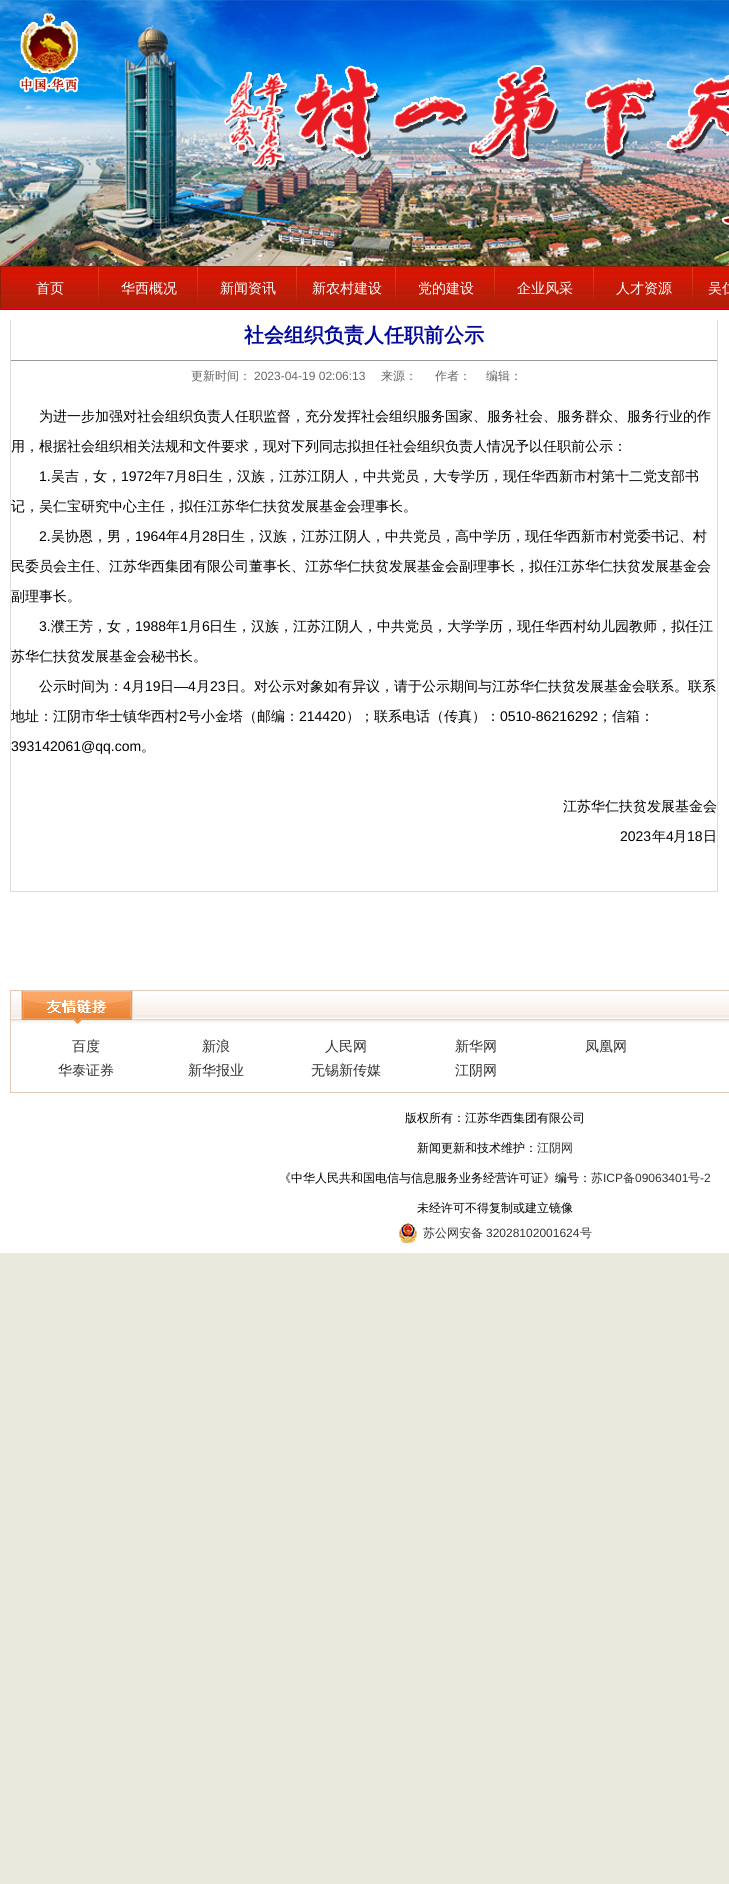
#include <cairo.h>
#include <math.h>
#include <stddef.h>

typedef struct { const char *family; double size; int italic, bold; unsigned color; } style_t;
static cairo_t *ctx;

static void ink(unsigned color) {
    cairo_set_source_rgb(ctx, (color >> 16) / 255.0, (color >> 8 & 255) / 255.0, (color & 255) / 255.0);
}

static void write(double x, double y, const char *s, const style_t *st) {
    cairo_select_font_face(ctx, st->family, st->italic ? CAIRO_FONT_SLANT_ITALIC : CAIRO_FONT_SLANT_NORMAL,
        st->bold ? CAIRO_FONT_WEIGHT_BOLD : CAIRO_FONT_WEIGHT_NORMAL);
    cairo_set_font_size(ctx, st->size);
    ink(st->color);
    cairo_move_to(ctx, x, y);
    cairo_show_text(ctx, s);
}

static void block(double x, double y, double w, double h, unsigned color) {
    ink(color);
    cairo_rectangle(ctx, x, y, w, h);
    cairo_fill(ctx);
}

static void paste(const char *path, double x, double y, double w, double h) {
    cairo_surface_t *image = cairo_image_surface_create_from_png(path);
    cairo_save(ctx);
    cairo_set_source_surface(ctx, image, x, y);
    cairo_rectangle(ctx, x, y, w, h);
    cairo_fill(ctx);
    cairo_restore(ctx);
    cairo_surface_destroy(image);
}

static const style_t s1 = {"WenQuanYi Zen Hei Medium", 14, 0, 0, 0xffffff};
static const style_t s2 = {"WenQuanYi Zen Hei", 20, 0, 1, 0x020998};
static const style_t s3 = {"WenQuanYi Zen Hei Medium", 12, 0, 0, 0x666666};
static const style_t s4 = {"Liberation Sans", 12, 0, 0, 0x666666};
static const style_t s5 = {"WenQuanYi Zen Hei Medium", 14, 0, 0, 0x000000};
static const style_t s6 = {"Liberation Sans", 14, 0, 0, 0x000000};
static const style_t s7 = {"WenQuanYi Zen Hei Medium", 14, 0, 0, 0x323232};
static const style_t s8 = {"WenQuanYi Zen Hei Medium", 12, 0, 0, 0x000000};
static const style_t s9 = {"WenQuanYi Zen Hei Medium", 12, 0, 0, 0x323232};
static const style_t s10 = {"Liberation Sans", 12, 0, 0, 0x323232};

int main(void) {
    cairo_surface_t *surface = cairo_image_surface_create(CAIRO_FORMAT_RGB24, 729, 1884);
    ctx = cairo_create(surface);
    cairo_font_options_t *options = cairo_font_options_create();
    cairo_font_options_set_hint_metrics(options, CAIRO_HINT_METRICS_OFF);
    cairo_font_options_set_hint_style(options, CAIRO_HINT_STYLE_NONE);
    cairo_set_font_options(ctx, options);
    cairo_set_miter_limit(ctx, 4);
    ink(0xe9e9dd);
    cairo_paint(ctx);
    block(0, 310, 729, 943, 0xffffff);
    paste("pic1.png", 0, 0, 729, 266);
    paste("pic2.png", 1, 267, 728, 42);
    cairo_rectangle(ctx, 0.5, 266.5, 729, 43);
    ink(0x911f04);
    cairo_set_line_width(ctx, 1);
    cairo_stroke(ctx);
    paste("pic3.png", 98, 267, 1, 34);
    write(36, 293, "首页", &s1);
    paste("pic3.png", 197, 267, 1, 34);
    write(121, 293, "华西概况", &s1);
    paste("pic3.png", 296, 267, 1, 34);
    write(220, 293, "新闻资讯", &s1);
    paste("pic3.png", 395, 267, 1, 34);
    write(312, 293, "新农村建设", &s1);
    paste("pic3.png", 494, 267, 1, 34);
    write(418, 293, "党的建设", &s1);
    paste("pic3.png", 593, 267, 1, 34);
    write(517, 293, "企业风采", &s1);
    paste("pic3.png", 692, 267, 1, 34);
    write(616, 293, "人才资源", &s1);
    write(708, 293, "吴仁", &s1);
    block(717, 320, 1, 572, 0xdcdcdc);
    block(10, 891, 708, 1, 0xdcdcdc);
    block(10, 320, 1, 572, 0xdcdcdc);
    block(11, 360, 706, 1, 0x999999);
    write(244, 342, "社会组织负责人任职前公示", &s2);
    write(191, 380, "更新时间：", &s3);
    write(254, 380, "2023-04-19 02:06:13", &s4);
    write(381, 380, "来源：", &s3);
    write(435, 380, "作者：", &s3);
    write(486, 380, "编辑：", &s3);
    write(39, 421, "为进一步加强对社会组织负责人任职监督，充分发挥社会组织服务国家、服务社会、服务群众、服务行业的作", &s5);
    write(11, 451, "用，根据社会组织相关法规和文件要求，现对下列同志拟担任社会组织负责人情况予以任职前公示：", &s5);
    write(39, 481, "1.", &s6);
    write(51, 481, "吴吉，女，", &s5);
    write(121, 481, "1972", &s6);
    write(152, 481, "年", &s5);
    write(166, 481, "7", &s6);
    write(174, 481, "月", &s5);
    write(188, 481, "8", &s6);
    write(195, 481, "日生，汉族，江苏江阴人，中共党员，大专学历，现任华西新市村第十二党支部书", &s5);
    write(11, 511, "记，吴仁宝研究中心主任，拟任江苏华仁扶贫发展基金会理事长。", &s5);
    write(39, 541, "2.", &s6);
    write(51, 541, "吴协恩，男，", &s5);
    write(135, 541, "1964", &s6);
    write(166, 541, "年", &s5);
    write(180, 541, "4", &s6);
    write(188, 541, "月", &s5);
    write(202, 541, "28", &s6);
    write(217, 541, "日生，汉族，江苏江阴人，中共党员，高中学历，现任华西新市村党委书记、村", &s5);
    write(11, 571, "民委员会主任、江苏华西集团有限公司董事长、江苏华仁扶贫发展基金会副理事长，拟任江苏华仁扶贫发展基金会", &s5);
    write(11, 601, "副理事长。", &s5);
    write(39, 631, "3.", &s6);
    write(51, 631, "濮王芳，女，", &s5);
    write(135, 631, "1988", &s6);
    write(166, 631, "年", &s5);
    write(180, 631, "1", &s6);
    write(188, 631, "月", &s5);
    write(202, 631, "6", &s6);
    write(209, 631, "日生，汉族，江苏江阴人，中共党员，大学学历，现任华西村幼儿园教师，拟任江", &s5);
    write(11, 661, "苏华仁扶贫发展基金会秘书长。", &s5);
    write(39, 691, "公示时间为：", &s5);
    write(123, 691, "4", &s6);
    write(131, 691, "月", &s5);
    write(145, 691, "19", &s6);
    write(160, 691, "日", &s5);
    write(174, 691, "―4", &s6);
    write(196, 691, "月", &s5);
    write(210, 691, "23", &s6);
    write(226, 691, "日。对公示对象如有异议，请于公示期间与江苏华仁扶贫发展基金会联系。联系", &s5);
    write(11, 721, "地址：江阴市华士镇华西村", &s5);
    write(179, 721, "2", &s6);
    write(187, 721, "号小金塔（邮编：", &s5);
    write(299, 721, "214420", &s6);
    write(346, 721, "）；联系电话（传真）：", &s5);
    write(500, 721, "0510-86216292", &s6);
    write(598, 721, "；信箱：", &s5);
    write(11, 751, "393142061@qq.com", &s6);
    write(141, 751, "。", &s5);
    write(563, 811, "江苏华仁扶贫发展基金会", &s5);
    write(620, 841, "2023", &s6);
    write(652, 841, "年", &s5);
    write(666, 841, "4", &s6);
    write(673, 841, "月", &s5);
    write(687, 841, "18", &s6);
    write(703, 841, "日", &s5);
    cairo_rectangle(ctx, 10.5, 990.5, 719, 102);
    ink(0xe4cabb);
    cairo_stroke(ctx);
    paste("pic4.png", 11, 996, 718, 28);
    paste("pic5.png", 21, 991, 112, 33);
    write(72, 1051, "百度", &s7);
    write(202, 1051, "新浪", &s7);
    write(325, 1051, "人民网", &s7);
    write(455, 1051, "新华网", &s7);
    write(585, 1051, "凤凰网", &s7);
    write(58, 1075, "华泰证券", &s7);
    write(188, 1075, "新华报业", &s7);
    write(311, 1075, "无锡新传媒", &s7);
    write(455, 1075, "江阴网", &s7);
    write(405, 1122, "版权所有：江苏华西集团有限公司", &s8);
    write(417, 1152, "新闻更新和技术维护：", &s8);
    write(537, 1152, "江阴网", &s9);
    write(279, 1182, "《中华人民共和国电信与信息服务业务经营许可证》编号：", &s8);
    write(591, 1182, "苏", &s9);
    write(603, 1182, "ICP", &s10);
    write(623, 1182, "备", &s9);
    write(635, 1182, "09063401", &s10);
    write(688, 1182, "号", &s9);
    write(700, 1182, "-2", &s10);
    write(417, 1212, "未经许可不得复制或建立镜像", &s8);
    paste("pic6.png", 399, 1223, 18, 20);
    write(423, 1237, "苏公网安备", &s9);
    write(486, 1237, "32028102001624", &s10);
    write(580, 1237, "号", &s9);
    cairo_surface_write_to_png(surface, "screenshot.png");
    cairo_font_options_destroy(options);
    cairo_destroy(ctx);
    cairo_surface_destroy(surface);
    return 0;
}
